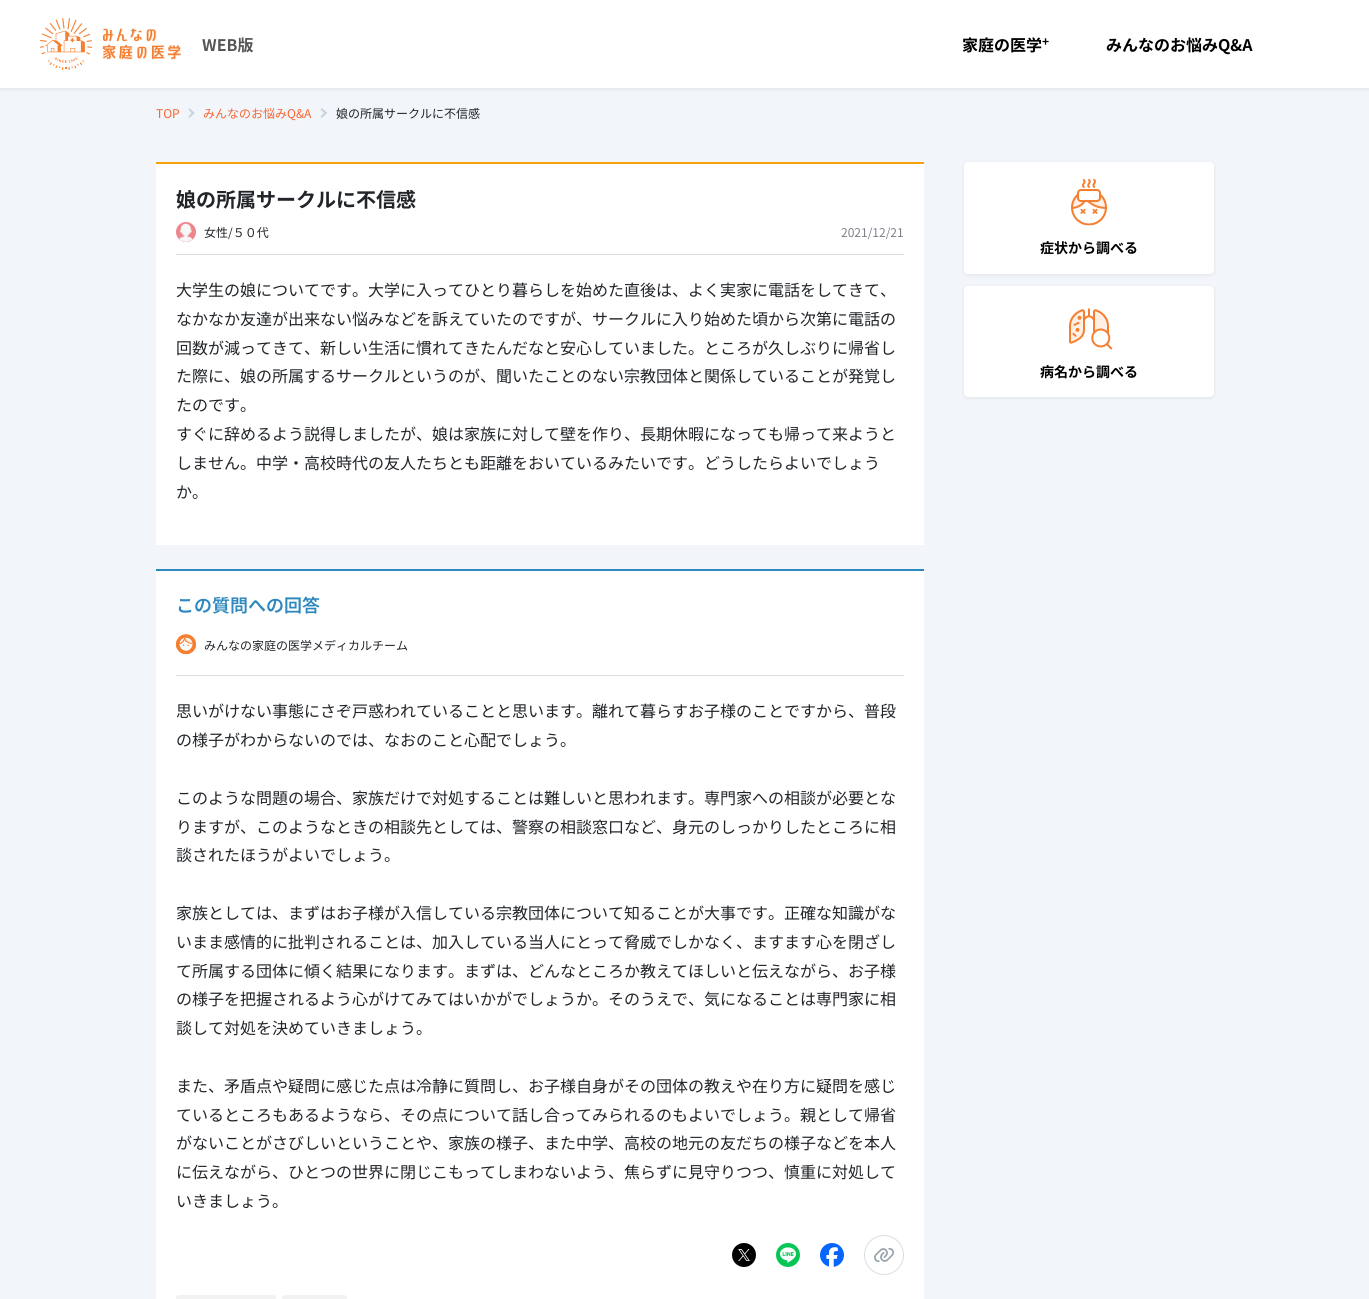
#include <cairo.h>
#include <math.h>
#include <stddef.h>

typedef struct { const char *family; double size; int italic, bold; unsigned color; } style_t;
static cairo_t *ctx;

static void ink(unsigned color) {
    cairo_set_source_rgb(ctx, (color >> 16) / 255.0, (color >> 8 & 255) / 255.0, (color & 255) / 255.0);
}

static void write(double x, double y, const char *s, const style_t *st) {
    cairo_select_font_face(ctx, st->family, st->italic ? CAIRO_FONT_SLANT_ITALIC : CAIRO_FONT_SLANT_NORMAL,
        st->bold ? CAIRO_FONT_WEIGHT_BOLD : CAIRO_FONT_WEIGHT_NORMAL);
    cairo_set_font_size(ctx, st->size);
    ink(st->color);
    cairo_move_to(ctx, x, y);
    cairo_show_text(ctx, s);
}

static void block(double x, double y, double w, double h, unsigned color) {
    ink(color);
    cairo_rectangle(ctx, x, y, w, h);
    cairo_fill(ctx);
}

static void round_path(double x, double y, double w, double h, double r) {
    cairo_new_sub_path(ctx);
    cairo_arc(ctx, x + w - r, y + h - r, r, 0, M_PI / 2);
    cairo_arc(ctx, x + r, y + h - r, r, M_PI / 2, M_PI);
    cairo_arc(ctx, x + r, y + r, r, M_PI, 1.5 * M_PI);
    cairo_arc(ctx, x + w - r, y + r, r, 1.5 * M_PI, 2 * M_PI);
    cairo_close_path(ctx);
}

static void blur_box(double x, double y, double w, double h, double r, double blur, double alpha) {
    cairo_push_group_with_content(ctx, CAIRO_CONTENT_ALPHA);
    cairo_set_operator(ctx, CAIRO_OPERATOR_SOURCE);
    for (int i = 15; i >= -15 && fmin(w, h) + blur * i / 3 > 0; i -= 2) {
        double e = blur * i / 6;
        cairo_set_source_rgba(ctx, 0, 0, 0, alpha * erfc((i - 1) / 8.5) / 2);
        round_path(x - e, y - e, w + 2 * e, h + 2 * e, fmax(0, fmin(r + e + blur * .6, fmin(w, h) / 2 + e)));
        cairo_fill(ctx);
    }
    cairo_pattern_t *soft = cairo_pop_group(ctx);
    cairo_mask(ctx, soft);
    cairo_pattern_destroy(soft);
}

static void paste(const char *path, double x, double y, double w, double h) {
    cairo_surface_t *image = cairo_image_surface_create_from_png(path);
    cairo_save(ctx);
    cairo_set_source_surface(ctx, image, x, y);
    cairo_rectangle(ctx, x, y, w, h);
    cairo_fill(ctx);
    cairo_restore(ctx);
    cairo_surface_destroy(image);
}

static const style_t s1 = {"Noto Sans JP", 16, 0, 1, 0x555555};
static const style_t s2 = {"Noto Sans JP", 16, 0, 1, 0x000000};
static const style_t s3 = {"Noto Sans JP", 12, 0, 1, 0x000000};
static const style_t s4 = {"Noto Sans JP", 12, 0, 0, 0xf56531};
static const style_t s5 = {"Noto Sans JP", 12, 0, 0, 0x212529};
static const style_t s6 = {"Noto Sans JP", 20, 0, 1, 0x212529};
static const style_t s7 = {"Noto Sans JP", 12, 0, 0, 0x7c808a};
static const style_t s8 = {"Noto Sans JP", 16, 0, 0, 0x212529};
static const style_t s9 = {"Noto Sans JP SemiBold", 18, 0, 0, 0x2c88be};
static const style_t s10 = {"Noto Sans JP", 14, 0, 1, 0x000000};

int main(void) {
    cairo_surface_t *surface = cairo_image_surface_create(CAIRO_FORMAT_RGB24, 1369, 1299);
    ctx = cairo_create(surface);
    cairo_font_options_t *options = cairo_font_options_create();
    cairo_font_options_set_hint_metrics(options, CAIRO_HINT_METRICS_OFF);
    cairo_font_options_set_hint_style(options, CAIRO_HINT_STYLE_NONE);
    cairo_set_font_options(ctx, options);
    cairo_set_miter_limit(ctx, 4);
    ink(0xf2f5fa);
    cairo_paint(ctx);
    ink(0x000000);
    blur_box(0, 1, 1369, 88, 0, 2, 0.08);
    block(0, 0, 1369, 88, 0xffffff);
    paste("pic1.png", 40, 18, 141, 52);
    write(202, 51, "WEB版", &s1);
    write(962, 51, "家庭の医学", &s2);
    write(1042, 46, "+", &s3);
    write(1106, 51, "みんなのお悩みQ&A", &s2);
    write(156, 118, "TOP", &s4);
    ink(0xc5d4de);
    cairo_new_path(ctx);
    cairo_move_to(ctx, 189.5, 108);
    cairo_line_to(ctx, 194.5, 113);
    cairo_line_to(ctx, 193, 114.5);
    cairo_line_to(ctx, 188.5, 109.5);
    cairo_close_path(ctx);
    cairo_fill(ctx);
    cairo_new_path(ctx);
    cairo_move_to(ctx, 193, 111.5);
    cairo_line_to(ctx, 194.5, 113);
    cairo_line_to(ctx, 189.5, 118);
    cairo_line_to(ctx, 188.5, 116.5);
    cairo_close_path(ctx);
    cairo_fill(ctx);
    write(203, 118, "みんなのお悩みQ&A", &s4);
    ink(0xc5d4de);
    cairo_new_path(ctx);
    cairo_move_to(ctx, 322, 108);
    cairo_line_to(ctx, 327, 113);
    cairo_line_to(ctx, 325.5, 114.5);
    cairo_line_to(ctx, 320.5, 109.5);
    cairo_close_path(ctx);
    cairo_fill(ctx);
    cairo_new_path(ctx);
    cairo_move_to(ctx, 325.5, 111.5);
    cairo_line_to(ctx, 327, 113);
    cairo_line_to(ctx, 322, 118);
    cairo_line_to(ctx, 320.5, 116.5);
    cairo_close_path(ctx);
    cairo_fill(ctx);
    write(336, 118, "娘の所属サークルに不信感", &s5);
    block(156, 164, 768, 381, 0xffffff);
    block(156, 162, 768, 2, 0xf7a00a);
    write(176, 207, "娘の所属サークルに不信感", &s6);
    block(176, 254, 728, 1, 0xdcdde0);
    ink(0xed858c);
    cairo_new_path(ctx);
    cairo_arc(ctx, 186, 232, 10, 0, 2 * M_PI);
    cairo_fill(ctx);
    paste("pic2.png", 179, 223, 14, 19);
    write(204, 237, "女性/５０代", &s5);
    write(841, 237, "2021/12/21", &s7);
    write(176, 296, "大学生の娘についてです。大学に入ってひとり暮らしを始めた直後は、よく実家に電話をしてきて、", &s8);
    write(176, 325, "なかなか友達が出来ない悩みなどを訴えていたのですが、サークルに入り始めた頃から次第に電話の", &s8);
    write(176, 354, "回数が減ってきて、新しい生活に慣れてきたんだなと安心していました。ところが久しぶりに帰省し", &s8);
    write(176, 382, "た際に、娘の所属するサークルというのが、聞いたことのない宗教団体と関係していることが発覚し", &s8);
    write(176, 411, "たのです。", &s8);
    write(176, 440, "すぐに辞めるよう説得しましたが、娘は家族に対して壁を作り、長期休暇になっても帰って来ようと", &s8);
    write(176, 469, "しません。中学・高校時代の友人たちとも距離をおいているみたいです。どうしたらよいでしょう", &s8);
    write(176, 498, "か。", &s8);
    block(156, 571, 768, 728, 0xffffff);
    block(156, 569, 768, 2, 0x2c88be);
    write(176, 612, "この質問への回答", &s9);
    block(176, 675, 728, 1, 0xdcdde0);
    paste("pic3.png", 176, 634, 20, 21);
    write(204, 650, "みんなの家庭の医学メディカルチーム", &s5);
    write(176, 717, "思いがけない事態にさぞ戸惑われていることと思います。離れて暮らすお子様のことですから、普段", &s8);
    write(176, 746, "の様子がわからないのでは、なおのこと心配でしょう。", &s8);
    write(176, 804, "このような問題の場合、家族だけで対処することは難しいと思われます。専門家への相談が必要とな", &s8);
    write(176, 833, "りますが、このようなときの相談先としては、警察の相談窓口など、身元のしっかりしたところに相", &s8);
    write(176, 861, "談されたほうがよいでしょう。", &s8);
    write(176, 919, "家族としては、まずはお子様が入信している宗教団体について知ることが大事です。正確な知識がな", &s8);
    write(176, 948, "いまま感情的に批判されることは、加入している当人にとって脅威でしかなく、ますます心を閉ざし", &s8);
    write(176, 977, "て所属する団体に傾く結果になります。まずは、どんなところか教えてほしいと伝えながら、お子様", &s8);
    write(176, 1005, "の様子を把握されるよう心がけてみてはいかがでしょうか。そのうえで、気になることは専門家に相", &s8);
    write(176, 1034, "談して対処を決めていきましょう。", &s8);
    write(176, 1092, "また、矛盾点や疑問に感じた点は冷静に質問し、お子様自身がその団体の教えや在り方に疑問を感じ", &s8);
    write(176, 1121, "ているところもあるようなら、その点について話し合ってみられるのもよいでしょう。親として帰省", &s8);
    write(176, 1149, "がないことがさびしいということや、家族の様子、また中学、高校の地元の友だちの様子などを本人", &s8);
    write(176, 1178, "に伝えながら、ひとつの世界に閉じこもってしまわないよう、焦らずに見守りつつ、慎重に対処して", &s8);
    write(176, 1207, "いきましょう。", &s8);
    paste("pic4.png", 732, 1243, 24, 24);
    paste("pic5.png", 776, 1243, 24, 24);
    paste("pic6.png", 820, 1243, 24, 24);
    cairo_arc(ctx, 884, 1255, 19.5, 0, 2 * M_PI);
    ink(0xdcdde0);
    cairo_set_line_width(ctx, 1);
    cairo_stroke(ctx);
    paste("pic7.png", 874, 1247, 20, 16);
    ink(0xf2f2f2);
    round_path(176, 1295, 100, 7, 3);
    cairo_fill(ctx);
    round_path(282, 1295, 65, 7, 3);
    cairo_fill(ctx);
    ink(0x000000);
    blur_box(964, 163, 250, 112, 4, 2, 0.08);
    ink(0xffffff);
    round_path(964, 162, 250, 112, 4);
    cairo_fill(ctx);
    paste("pic8.png", 1071, 179, 36, 47);
    write(1040, 253, "症状から調べる", &s10);
    ink(0x000000);
    blur_box(964, 287, 250, 111, 4, 2, 0.08);
    ink(0xffffff);
    round_path(964, 286, 250, 111, 4);
    cairo_fill(ctx);
    paste("pic9.png", 1069, 308, 44, 42);
    write(1040, 377, "病名から調べる", &s10);
    cairo_surface_write_to_png(surface, "screenshot.png");
    cairo_font_options_destroy(options);
    cairo_destroy(ctx);
    cairo_surface_destroy(surface);
    return 0;
}
